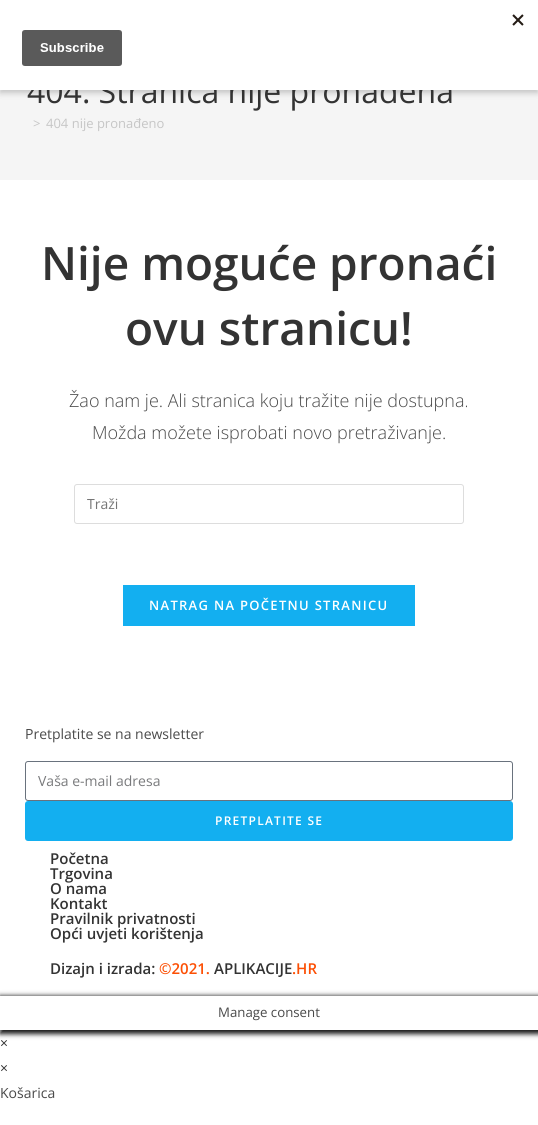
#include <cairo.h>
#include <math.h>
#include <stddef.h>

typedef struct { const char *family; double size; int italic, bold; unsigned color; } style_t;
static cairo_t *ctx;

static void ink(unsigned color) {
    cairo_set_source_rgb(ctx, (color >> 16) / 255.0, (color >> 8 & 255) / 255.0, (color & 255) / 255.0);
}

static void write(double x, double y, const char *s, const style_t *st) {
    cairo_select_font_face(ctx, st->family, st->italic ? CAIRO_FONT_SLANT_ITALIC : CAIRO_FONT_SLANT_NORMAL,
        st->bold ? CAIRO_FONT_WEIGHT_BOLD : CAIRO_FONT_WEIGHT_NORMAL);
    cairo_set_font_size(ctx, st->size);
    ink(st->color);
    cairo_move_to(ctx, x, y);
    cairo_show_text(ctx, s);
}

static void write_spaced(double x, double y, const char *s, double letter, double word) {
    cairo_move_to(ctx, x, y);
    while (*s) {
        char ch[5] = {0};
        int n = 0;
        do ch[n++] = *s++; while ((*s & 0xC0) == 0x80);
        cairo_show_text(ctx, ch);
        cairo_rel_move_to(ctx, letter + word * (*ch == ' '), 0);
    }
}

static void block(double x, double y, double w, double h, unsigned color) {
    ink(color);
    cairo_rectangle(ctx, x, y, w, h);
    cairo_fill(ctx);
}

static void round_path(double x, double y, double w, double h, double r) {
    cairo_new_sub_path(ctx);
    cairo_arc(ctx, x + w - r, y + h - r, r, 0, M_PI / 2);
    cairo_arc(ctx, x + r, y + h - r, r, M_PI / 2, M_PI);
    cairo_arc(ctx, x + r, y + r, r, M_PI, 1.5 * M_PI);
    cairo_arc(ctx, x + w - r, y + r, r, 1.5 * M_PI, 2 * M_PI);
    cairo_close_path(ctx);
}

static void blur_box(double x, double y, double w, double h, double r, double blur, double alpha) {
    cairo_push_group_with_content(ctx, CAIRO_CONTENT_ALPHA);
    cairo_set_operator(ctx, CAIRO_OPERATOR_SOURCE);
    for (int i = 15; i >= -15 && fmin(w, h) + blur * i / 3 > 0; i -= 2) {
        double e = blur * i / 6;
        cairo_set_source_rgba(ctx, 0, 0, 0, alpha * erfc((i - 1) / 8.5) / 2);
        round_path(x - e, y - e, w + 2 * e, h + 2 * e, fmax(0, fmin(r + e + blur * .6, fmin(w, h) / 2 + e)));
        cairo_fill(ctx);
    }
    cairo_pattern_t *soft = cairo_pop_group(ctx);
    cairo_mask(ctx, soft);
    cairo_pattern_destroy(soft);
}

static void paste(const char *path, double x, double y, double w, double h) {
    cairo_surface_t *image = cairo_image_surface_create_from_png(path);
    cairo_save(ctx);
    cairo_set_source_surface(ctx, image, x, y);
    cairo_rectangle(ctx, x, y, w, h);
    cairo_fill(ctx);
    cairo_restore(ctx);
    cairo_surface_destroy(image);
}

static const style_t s1 = {"Open Sans", 32, 0, 0, 0x333333};
static const style_t s2 = {"Open Sans", 13, 0, 0, 0xc6c6c6};
static const style_t s3 = {"Open Sans SemiBold", 46, 0, 0, 0x333333};
static const style_t s4 = {"Open Sans Light", 18, 0, 0, 0x4a4a4a};
static const style_t s5 = {"Open Sans", 14, 0, 0, 0x757575};
static const style_t s6 = {"Open Sans", 14, 0, 0, 0x4a4a4a};
static const style_t s7 = {"Open Sans", 14, 0, 0, 0x797a7c};
static const style_t s8 = {"Open Sans SemiBold", 15, 0, 0, 0x333333};
static const style_t s9 = {"Open Sans SemiBold", 15, 0, 0, 0xfc4f04};
static const style_t s10 = {"Open Sans", 13.25, 0, 0, 0x4a4a4a};
static const style_t s11 = {"Open Sans", 14, 0, 0, 0x333333};

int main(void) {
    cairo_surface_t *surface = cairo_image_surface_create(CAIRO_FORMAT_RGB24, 538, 1125);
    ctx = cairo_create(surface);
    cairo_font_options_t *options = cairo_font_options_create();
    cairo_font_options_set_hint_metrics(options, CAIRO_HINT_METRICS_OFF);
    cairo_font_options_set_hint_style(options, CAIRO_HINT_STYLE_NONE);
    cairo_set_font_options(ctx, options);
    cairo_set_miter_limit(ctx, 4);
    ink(0xffffff);
    cairo_paint(ctx);
    block(0, 90, 538, 90, 0xf5f5f5);
    ink(0x000000);
    blur_box(0, 3, 538, 90, 0, 3, 0.2);
    write(27, 103, "404: Stranica nije pronađena", &s1);
    block(0, 0, 538, 90, 0xffffff);
    paste("pic1.png", 22, 14, 502, 52);
    write(33, 128, ">", &s2);
    write(46, 128, "404 nije pronađeno", &s2);
    write(41, 280, "Nije moguće pronaći", &s3);
    write(125, 345, "ovu stranicu!", &s3);
    write(69, 407, "Žao nam je. Ali stranica koju tražite nije dostupna.", &s4);
    write(92, 439, "Možda možete isprobati novo pretraživanje.", &s4);
    round_path(74.5, 484.5, 389, 39, 2.5);
    ink(0xdddddd);
    cairo_set_line_width(ctx, 1);
    cairo_stroke(ctx);
    write(87, 509, "Traži", &s5);
    block(123, 585, 292, 41, 0x13aff0);
    cairo_select_font_face(ctx, "Open Sans SemiBold", CAIRO_FONT_SLANT_NORMAL, CAIRO_FONT_WEIGHT_NORMAL);
    cairo_set_font_size(ctx, 13);
    ink(0xffffff);
    write_spaced(149, 610, "NATRAG NA POČETNU STRANICU", 1.3, 0);
    write(25, 739, "Pretplatite se na newsletter", &s6);
    round_path(25.5, 761.5, 487, 39, 2.5);
    ink(0x69727d);
    cairo_stroke(ctx);
    write(38, 786, "Vaša e-mail adresa", &s7);
    ink(0x13aff0);
    round_path(25, 801, 488, 40, 3);
    cairo_fill(ctx);
    cairo_select_font_face(ctx, "Open Sans SemiBold", CAIRO_FONT_SLANT_NORMAL, CAIRO_FONT_WEIGHT_NORMAL);
    cairo_set_font_size(ctx, 12);
    ink(0xffffff);
    write_spaced(215, 825, "PRETPLATITE SE", 1.25, 0);
    write(50, 864, "Početna", &s8);
    write(50, 879, "Trgovina", &s8);
    write(50, 894, "O nama", &s8);
    write(50, 909, "Kontakt", &s8);
    write(50, 924, "Pravilnik privatnosti", &s8);
    write(50, 939, "Opći uvjeti korištenja", &s8);
    write(50, 974, "Dizajn i izrada:", &s8);
    write(159, 974, "©2021.", &s9);
    write(214, 974, "APLIKACIJE", &s8);
    write(292, 974, ".HR", &s9);
    cairo_save(ctx);
    cairo_set_fill_rule(ctx, CAIRO_FILL_RULE_EVEN_ODD);
    cairo_new_path(ctx);
    cairo_move_to(ctx, 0, 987);
    cairo_line_to(ctx, 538, 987);
    cairo_line_to(ctx, 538, 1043);
    cairo_line_to(ctx, 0, 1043);
    cairo_close_path(ctx);
    cairo_move_to(ctx, 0, 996);
    cairo_line_to(ctx, 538, 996);
    cairo_line_to(ctx, 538, 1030);
    cairo_line_to(ctx, 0, 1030);
    cairo_close_path(ctx);
    cairo_clip(ctx);
    ink(0x161616);
    blur_box(0, 996, 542, 38, 0, 2.5, 1);
    cairo_restore(ctx);
    write(218, 1017, "Manage consent", &s10);
    write(0, 1048, "×", &s11);
    write(0, 1073, "×", &s11);
    write(0, 1098, "Košarica", &s6);
    cairo_surface_write_to_png(surface, "screenshot.png");
    cairo_font_options_destroy(options);
    cairo_destroy(ctx);
    cairo_surface_destroy(surface);
    return 0;
}
